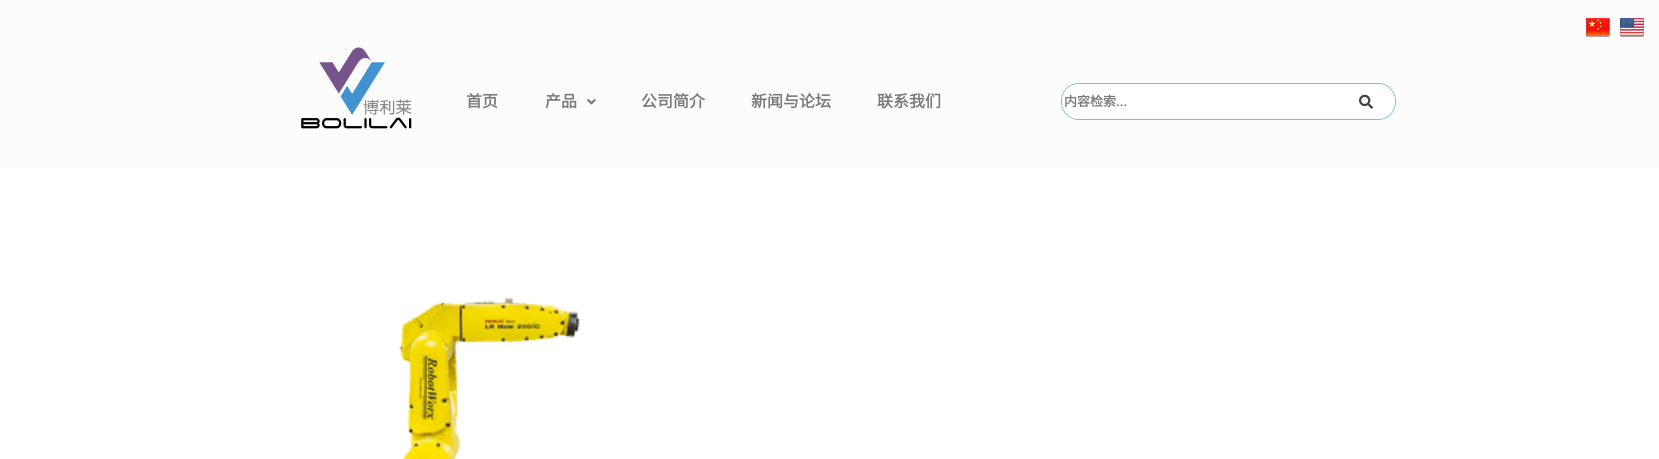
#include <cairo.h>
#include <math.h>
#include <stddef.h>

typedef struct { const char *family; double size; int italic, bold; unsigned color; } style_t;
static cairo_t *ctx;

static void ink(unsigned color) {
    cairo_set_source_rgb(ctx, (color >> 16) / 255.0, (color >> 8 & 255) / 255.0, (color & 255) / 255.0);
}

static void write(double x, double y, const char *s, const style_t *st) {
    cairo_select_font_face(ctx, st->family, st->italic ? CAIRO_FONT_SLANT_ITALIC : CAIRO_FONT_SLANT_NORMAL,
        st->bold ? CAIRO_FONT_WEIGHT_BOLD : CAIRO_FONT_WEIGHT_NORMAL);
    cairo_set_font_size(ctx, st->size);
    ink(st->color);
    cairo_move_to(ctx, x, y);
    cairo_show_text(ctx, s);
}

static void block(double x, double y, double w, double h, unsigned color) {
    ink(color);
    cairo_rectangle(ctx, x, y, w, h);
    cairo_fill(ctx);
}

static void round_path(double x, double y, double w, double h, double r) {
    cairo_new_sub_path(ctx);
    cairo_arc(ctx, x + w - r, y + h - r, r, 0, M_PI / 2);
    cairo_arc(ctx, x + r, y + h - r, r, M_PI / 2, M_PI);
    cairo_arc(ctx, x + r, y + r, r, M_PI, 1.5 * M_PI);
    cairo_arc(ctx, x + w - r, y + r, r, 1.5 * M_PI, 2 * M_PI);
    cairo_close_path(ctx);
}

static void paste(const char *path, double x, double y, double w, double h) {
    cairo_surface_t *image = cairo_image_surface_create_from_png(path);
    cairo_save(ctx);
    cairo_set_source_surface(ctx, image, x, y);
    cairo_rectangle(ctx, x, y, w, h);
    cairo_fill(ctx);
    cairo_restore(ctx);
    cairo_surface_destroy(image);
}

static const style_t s1 = {"Noto Sans CJK SC", 16, 0, 1, 0x7a7a7a};
static const style_t s2 = {"Noto Sans CJK SC", 13, 0, 1, 0x7a7a7a};
static const style_t s3 = {"Roboto SemiBold", 13, 0, 0, 0x7a7a7a};

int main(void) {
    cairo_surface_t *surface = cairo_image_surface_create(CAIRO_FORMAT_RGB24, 1659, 459);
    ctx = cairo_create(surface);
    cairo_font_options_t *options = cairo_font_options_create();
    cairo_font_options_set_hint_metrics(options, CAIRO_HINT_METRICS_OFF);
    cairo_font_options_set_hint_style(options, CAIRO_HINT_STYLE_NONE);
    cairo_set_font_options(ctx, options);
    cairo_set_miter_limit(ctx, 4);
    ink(0xffffff);
    cairo_paint(ctx);
    block(0, 0, 1659, 168, 0xfcfcfc);
    paste("pic1.png", 1586, 17, 24, 20);
    paste("pic2.png", 1620, 17, 24, 20);
    paste("pic3.png", 301, 47, 111, 82);
    write(466, 107, "首页", &s1);
    write(545, 107, "产品", &s1);
    paste("pic4.png", 587, 99, 9, 6);
    write(641, 107, "公司简介", &s1);
    write(751, 107, "新闻与论坛", &s1);
    write(877, 107, "联系我们", &s1);
    round_path(1061.5, 83.5, 334, 36, 17.5);
    ink(0x6ec1e4);
    cairo_set_line_width(ctx, 1);
    cairo_stroke(ctx);
    ink(0xffffff);
    cairo_new_path(ctx);
    cairo_move_to(ctx, 1079, 84);
    cairo_line_to(ctx, 1337, 84);
    cairo_line_to(ctx, 1337, 119);
    cairo_line_to(ctx, 1079, 119);
    cairo_curve_to(ctx, 1069.5, 119, 1062, 111.5, 1062, 102);
    cairo_line_to(ctx, 1062, 101);
    cairo_curve_to(ctx, 1062, 91.5, 1069.5, 84, 1079, 84);
    cairo_close_path(ctx);
    cairo_fill(ctx);
    write(1064, 106, "内容检索", &s2);
    write(1116, 106, "...", &s3);
    ink(0xffffff);
    cairo_new_path(ctx);
    cairo_move_to(ctx, 1337, 84);
    cairo_line_to(ctx, 1378, 84);
    cairo_curve_to(ctx, 1387.5, 84, 1395, 91.5, 1395, 101);
    cairo_line_to(ctx, 1395, 102);
    cairo_curve_to(ctx, 1395, 111.5, 1387.5, 119, 1378, 119);
    cairo_line_to(ctx, 1337, 119);
    cairo_close_path(ctx);
    cairo_fill(ctx);
    paste("pic5.png", 1359, 94, 14, 15);
    paste("pic6.png", 398, 297, 182, 162);
    cairo_surface_write_to_png(surface, "screenshot.png");
    cairo_font_options_destroy(options);
    cairo_destroy(ctx);
    cairo_surface_destroy(surface);
    return 0;
}
